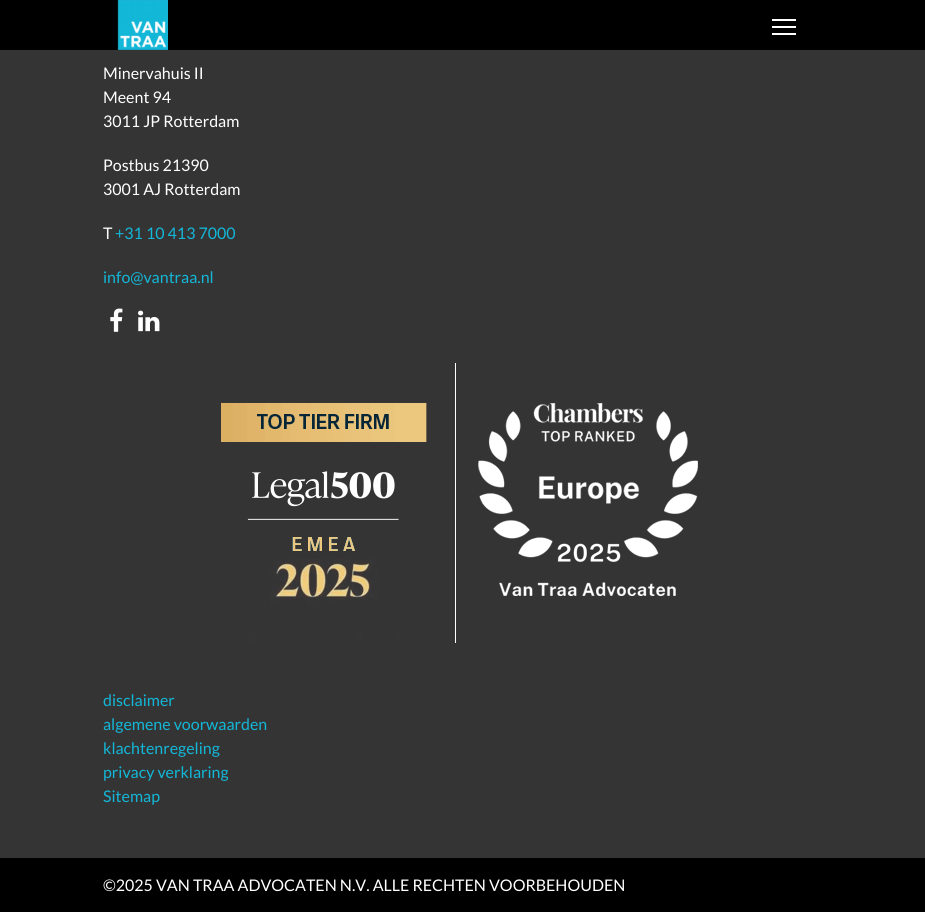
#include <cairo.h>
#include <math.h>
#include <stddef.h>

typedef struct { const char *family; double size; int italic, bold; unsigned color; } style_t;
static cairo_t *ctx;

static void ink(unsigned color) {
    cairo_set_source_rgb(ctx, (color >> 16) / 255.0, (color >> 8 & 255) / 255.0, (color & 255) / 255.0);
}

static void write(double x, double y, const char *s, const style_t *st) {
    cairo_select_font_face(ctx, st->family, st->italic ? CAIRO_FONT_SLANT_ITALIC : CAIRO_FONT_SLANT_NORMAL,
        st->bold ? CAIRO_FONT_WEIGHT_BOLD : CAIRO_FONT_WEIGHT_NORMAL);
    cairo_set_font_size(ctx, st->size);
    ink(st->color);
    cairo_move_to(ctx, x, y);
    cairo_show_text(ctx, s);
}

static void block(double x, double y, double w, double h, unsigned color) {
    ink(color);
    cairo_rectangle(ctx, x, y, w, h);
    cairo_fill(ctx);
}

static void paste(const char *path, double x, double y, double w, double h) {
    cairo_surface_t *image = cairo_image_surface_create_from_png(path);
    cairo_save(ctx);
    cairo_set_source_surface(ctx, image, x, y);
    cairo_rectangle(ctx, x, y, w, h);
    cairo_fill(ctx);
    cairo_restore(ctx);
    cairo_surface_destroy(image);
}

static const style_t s1 = {"Lato", 16, 0, 0, 0xffffff};
static const style_t s2 = {"Lato", 16, 0, 0, 0x13b7d8};

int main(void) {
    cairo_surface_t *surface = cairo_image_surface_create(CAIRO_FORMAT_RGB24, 925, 912);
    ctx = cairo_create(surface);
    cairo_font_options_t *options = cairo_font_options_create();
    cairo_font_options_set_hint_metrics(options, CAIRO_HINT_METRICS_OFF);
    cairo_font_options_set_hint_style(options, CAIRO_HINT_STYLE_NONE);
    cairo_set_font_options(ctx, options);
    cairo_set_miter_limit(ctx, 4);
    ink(0x343434);
    cairo_paint(ctx);
    block(0, 0, 925, 50, 0x000000);
    paste("pic1.png", 117, 0, 51, 50);
    block(772, 26, 24, 2, 0xffffff);
    block(772, 19, 24, 2, 0xffffff);
    block(772, 33, 24, 2, 0xffffff);
    write(103, 79, "Minervahuis II", &s1);
    write(103, 103, "Meent 94", &s1);
    write(103, 127, "3011 JP Rotterdam", &s1);
    write(103, 171, "Postbus 21390", &s1);
    write(103, 195, "3001 AJ Rotterdam", &s1);
    write(103, 239, "T", &s1);
    write(115, 239, "+31 10 413 7000", &s2);
    write(103, 283, "info@vantraa.nl", &s2);
    paste("pic2.png", 110, 308, 13, 24);
    paste("pic3.png", 138, 310, 22, 22);
    paste("pic4.png", 221, 363, 477, 280);
    write(103, 706, "disclaimer", &s2);
    write(103, 730, "algemene voorwaarden", &s2);
    write(103, 754, "klachtenregeling", &s2);
    write(103, 778, "privacy verklaring", &s2);
    write(103, 802, "Sitemap", &s2);
    block(0, 858, 925, 54, 0x000000);
    write(103, 891, "©2025 VAN TRAA ADVOCATEN N.V. ALLE RECHTEN VOORBEHOUDEN", &s1);
    cairo_surface_write_to_png(surface, "screenshot.png");
    cairo_font_options_destroy(options);
    cairo_destroy(ctx);
    cairo_surface_destroy(surface);
    return 0;
}
